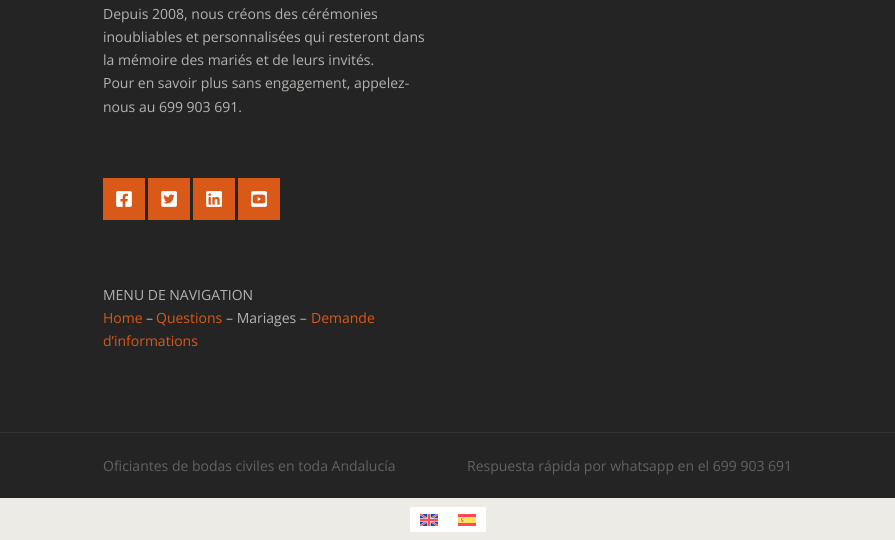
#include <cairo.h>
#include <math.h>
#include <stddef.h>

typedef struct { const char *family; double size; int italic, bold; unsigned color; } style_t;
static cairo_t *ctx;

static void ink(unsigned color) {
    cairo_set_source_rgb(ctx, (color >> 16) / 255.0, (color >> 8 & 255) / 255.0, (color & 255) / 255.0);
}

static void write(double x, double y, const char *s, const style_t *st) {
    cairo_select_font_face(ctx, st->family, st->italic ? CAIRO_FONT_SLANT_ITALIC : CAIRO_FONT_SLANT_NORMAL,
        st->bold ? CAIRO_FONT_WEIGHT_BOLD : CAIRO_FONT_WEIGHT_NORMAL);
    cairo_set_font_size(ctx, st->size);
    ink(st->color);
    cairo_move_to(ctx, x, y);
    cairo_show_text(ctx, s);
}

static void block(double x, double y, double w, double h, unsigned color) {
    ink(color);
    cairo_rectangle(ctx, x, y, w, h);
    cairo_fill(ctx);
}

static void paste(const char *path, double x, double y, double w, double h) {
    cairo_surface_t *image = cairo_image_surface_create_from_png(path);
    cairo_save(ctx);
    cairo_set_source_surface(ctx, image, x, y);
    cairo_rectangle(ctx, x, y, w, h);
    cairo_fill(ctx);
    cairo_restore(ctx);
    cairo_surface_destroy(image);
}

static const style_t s1 = {"Open Sans", 14, 0, 0, 0xb3b2ae};
static const style_t s2 = {"Open Sans", 14, 0, 0, 0xd95919};
static const style_t s3 = {"Open Sans", 14, 0, 0, 0x63625f};

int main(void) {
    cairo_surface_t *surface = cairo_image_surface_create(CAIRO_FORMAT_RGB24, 895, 540);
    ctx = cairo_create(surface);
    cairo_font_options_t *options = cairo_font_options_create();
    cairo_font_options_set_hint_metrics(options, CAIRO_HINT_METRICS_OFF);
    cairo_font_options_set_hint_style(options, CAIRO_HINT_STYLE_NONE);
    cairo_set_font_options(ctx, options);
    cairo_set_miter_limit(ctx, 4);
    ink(0xecebe5);
    cairo_paint(ctx);
    block(0, 0, 895, 498, 0x242424);
    write(103, 19, "Depuis 2008, nous créons des cérémonies", &s1);
    write(103, 42, "inoubliables et personnalisées qui resteront dans", &s1);
    write(103, 65, "la mémoire des mariés et de leurs invités.", &s1);
    write(103, 88, "Pour en savoir plus sans engagement, appelez-", &s1);
    write(103, 112, "nous au 699 903 691.", &s1);
    block(103, 178, 42, 42, 0xd95919);
    paste("pic1.png", 116, 191, 16, 16);
    block(148, 178, 42, 42, 0xd95919);
    paste("pic2.png", 161, 191, 16, 16);
    block(193, 178, 42, 42, 0xd95919);
    paste("pic3.png", 206, 191, 16, 16);
    block(238, 178, 42, 42, 0xd95919);
    paste("pic4.png", 251, 191, 16, 16);
    write(103, 300, "MENU DE NAVIGATION", &s1);
    write(103, 323, "Home", &s2);
    write(146, 323, "–", &s1);
    write(156, 323, "Questions", &s2);
    write(226, 323, "– Mariages –", &s1);
    write(311, 323, "Demande", &s2);
    write(103, 346, "d’informations", &s2);
    block(0, 432, 895, 1, 0x363636);
    write(103, 471, "Oficiantes de bodas civiles en toda Andalucía", &s3);
    write(467, 471, "Respuesta rápida por whatsapp en el 699 903 691", &s3);
    block(410, 507, 76, 25, 0xffffff);
    paste("pic5.png", 420, 514, 18, 12);
    paste("pic6.png", 458, 514, 18, 12);
    cairo_surface_write_to_png(surface, "screenshot.png");
    cairo_font_options_destroy(options);
    cairo_destroy(ctx);
    cairo_surface_destroy(surface);
    return 0;
}
